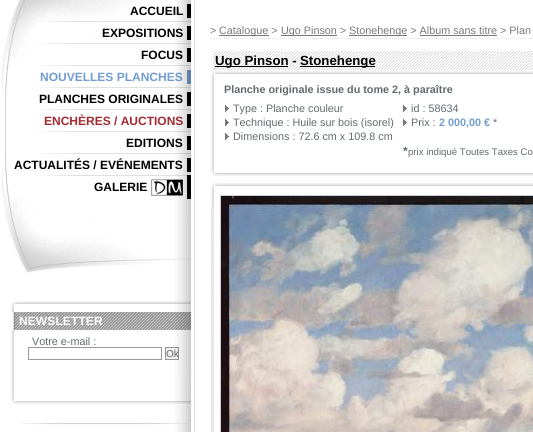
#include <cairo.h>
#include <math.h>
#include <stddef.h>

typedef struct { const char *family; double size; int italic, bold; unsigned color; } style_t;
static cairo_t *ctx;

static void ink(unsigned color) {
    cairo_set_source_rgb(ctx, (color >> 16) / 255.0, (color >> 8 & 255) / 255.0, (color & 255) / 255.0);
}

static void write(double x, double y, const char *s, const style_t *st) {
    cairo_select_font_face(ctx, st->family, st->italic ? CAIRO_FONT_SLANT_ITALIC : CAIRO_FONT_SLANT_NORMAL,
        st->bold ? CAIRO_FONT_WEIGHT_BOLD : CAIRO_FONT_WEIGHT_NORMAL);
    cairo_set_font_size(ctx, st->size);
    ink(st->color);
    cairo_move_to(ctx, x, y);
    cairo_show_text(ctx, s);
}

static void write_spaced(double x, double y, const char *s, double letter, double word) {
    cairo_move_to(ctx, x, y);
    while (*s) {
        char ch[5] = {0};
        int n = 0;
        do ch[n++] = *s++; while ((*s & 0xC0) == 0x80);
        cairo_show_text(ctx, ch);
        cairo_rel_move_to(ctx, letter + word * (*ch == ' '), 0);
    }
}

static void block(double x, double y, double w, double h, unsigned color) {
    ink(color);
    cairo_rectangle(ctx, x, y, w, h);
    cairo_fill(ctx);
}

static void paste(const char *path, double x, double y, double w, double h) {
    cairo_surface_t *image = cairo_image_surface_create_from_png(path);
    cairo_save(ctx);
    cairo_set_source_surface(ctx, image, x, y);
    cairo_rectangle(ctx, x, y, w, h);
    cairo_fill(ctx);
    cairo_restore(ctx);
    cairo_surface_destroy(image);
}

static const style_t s1 = {"Liberation Sans", 12, 0, 1, 0x000000};
static const style_t s2 = {"Liberation Sans", 12, 0, 1, 0x729dce};
static const style_t s3 = {"Liberation Sans", 12, 0, 1, 0xa12b31};
static const style_t s4 = {"Liberation Sans", 10.8, 0, 0, 0x616b6e};
static const style_t s5 = {"Liberation Sans", 10, 0, 0, 0x696969};
static const style_t s6 = {"Liberation Sans", 10.8, 0, 0, 0x787878};
static const style_t s7 = {"Liberation Sans", 13.25, 0, 1, 0x000000};
static const style_t s8 = {"Liberation Sans", 10.8, 0, 1, 0x616b6e};
static const style_t s9 = {"Liberation Sans", 10.8, 0, 1, 0x729dce};
static const style_t s10 = {"Liberation Sans", 12, 0, 1, 0x616b6e};
static const style_t s11 = {"Liberation Sans", 9.6, 0, 0, 0x616b6e};

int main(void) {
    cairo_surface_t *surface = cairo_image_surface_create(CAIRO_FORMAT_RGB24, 533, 432);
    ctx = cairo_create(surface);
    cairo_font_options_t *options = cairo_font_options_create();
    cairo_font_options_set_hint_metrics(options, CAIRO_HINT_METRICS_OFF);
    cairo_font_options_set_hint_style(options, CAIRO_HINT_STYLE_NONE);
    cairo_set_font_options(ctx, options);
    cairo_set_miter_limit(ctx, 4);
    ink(0xffffff);
    cairo_paint(ctx);
    paste("pic1.png", 2, 0, 205, 273);
    paste("pic2.png", 32, 21, 160, 1);
    write(130, 15, "ACCUEIL", &s1);
    block(187, 4, 5, 14, 0x000000);
    paste("pic3.png", 38, 43, 153, 1);
    write(102, 37, "EXPOSITIONS", &s1);
    block(187, 26, 5, 14, 0x000000);
    paste("pic4.png", 37, 65, 154, 1);
    write(141, 59, "FOCUS", &s1);
    block(187, 48, 4, 14, 0x000000);
    paste("pic4.png", 37, 87, 154, 1);
    write(40, 81, "NOUVELLES PLANCHES", &s2);
    block(187, 70, 4, 14, 0x729dce);
    paste("pic4.png", 37, 109, 154, 1);
    write(39, 103, "PLANCHES ORIGINALES", &s1);
    block(187, 92, 4, 14, 0x000000);
    paste("pic4.png", 37, 131, 154, 1);
    write(44, 125, "ENCHÈRES / AUCTIONS", &s3);
    block(187, 114, 4, 14, 0x000000);
    paste("pic4.png", 37, 153, 154, 1);
    write(126, 147, "EDITIONS", &s1);
    block(187, 136, 4, 14, 0x000000);
    paste("pic5.png", 37, 175, 150, 1);
    write(14, 169, "ACTUALITÉS / EVÉNEMENTS", &s1);
    block(187, 158, 4, 14, 0x000000);
    write(94, 191, "GALERIE", &s1);
    block(187, 175, 4, 24, 0x000000);
    paste("pic6.png", 151, 179, 32, 17);
    paste("pic7.png", 11, 301, 180, 11);
    paste("pic8.png", 13, 312, 178, 18);
    ink(0xffffff);
    write_spaced(19, 325, "NEWSLETTER", 0.1, 0);
    paste("pic9.png", 11, 330, 181, 74);
    write(32, 345, "Votre e-mail :", &s4);
    cairo_rectangle(ctx, 28.5, 347.5, 133, 12);
    ink(0x989898);
    cairo_set_line_width(ctx, 1);
    cairo_stroke(ctx);
    ink(0xefefef);
    cairo_rectangle(ctx, 165.5, 347.5, 13, 12);
    cairo_fill_preserve(ctx);
    ink(0x989898);
    cairo_stroke(ctx);
    write(166, 357, "Ok", &s5);
    paste("pic10.png", 18, 423, 171, 2);
    paste("pic11.png", 175, 0, 20, 3);
    paste("pic12.png", 175, 2, 32, 430);
    cairo_new_path(ctx);
    cairo_move_to(ctx, 210, 38.5);
    cairo_line_to(ctx, 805, 38.5);
    ink(0xe1e1e1);
    cairo_set_dash(ctx, (double[]){1, 1}, 2, 0);
    cairo_stroke(ctx);
    write(210, 34, ">", &s6);
    block(219, 35, 50, 1, 0x787878);
    write(219, 34, "Catalogue >", &s6);
    block(281, 35, 56, 1, 0x787878);
    write(281, 34, "Ugo Pinson >", &s6);
    block(349, 35, 58, 1, 0x787878);
    write(349, 34, "Stonehenge > Album sans titre > Plan", &s6);
    block(420, 35, 77, 1, 0x787878);
    paste("pic13.png", 213, 51, 320, 19);
    block(215, 66, 73, 1, 0x000000);
    write(215, 65, "Ugo Pinson -", &s7);
    block(300, 66, 75, 1, 0x000000);
    write(300, 65, "Stonehenge", &s7);
    paste("pic14.png", 211, 71, 322, 25);
    paste("pic15.png", 211, 96, 322, 80);
    write(224, 93, "Planche originale issue du tome 2, à paraître", &s8);
    paste("pic16.png", 225, 105, 4, 7);
    write(233, 112, "Type : Planche couleur", &s4);
    paste("pic16.png", 225, 119, 4, 7);
    write(233, 126, "Technique : Huile sur bois (isorel)", &s4);
    paste("pic16.png", 225, 133, 4, 7);
    write(233, 140, "Dimensions : 72.6 cm x 109.8 cm", &s4);
    paste("pic16.png", 403, 105, 4, 7);
    write(411, 112, "id : 58634", &s4);
    paste("pic16.png", 403, 119, 4, 7);
    write(411, 126, "Prix :", &s4);
    write(439, 126, "2 000,00 €", &s9);
    write(493, 126, "*", &s4);
    write(403, 155, "*", &s10);
    write(408, 155, "prix indiqué Toutes Taxes Co", &s11);
    paste("pic14.png", 211, 183, 322, 25);
    block(211, 208, 3, 224, 0xe7e7e7);
    cairo_rectangle(ctx, 220.5, 195.5, 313, 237);
    ink(0xcecece);
    cairo_set_dash(ctx, NULL, 0, 0);
    cairo_stroke(ctx);
    paste("pic17.png", 221, 196, 312, 236);
    cairo_surface_write_to_png(surface, "screenshot.png");
    cairo_font_options_destroy(options);
    cairo_destroy(ctx);
    cairo_surface_destroy(surface);
    return 0;
}
